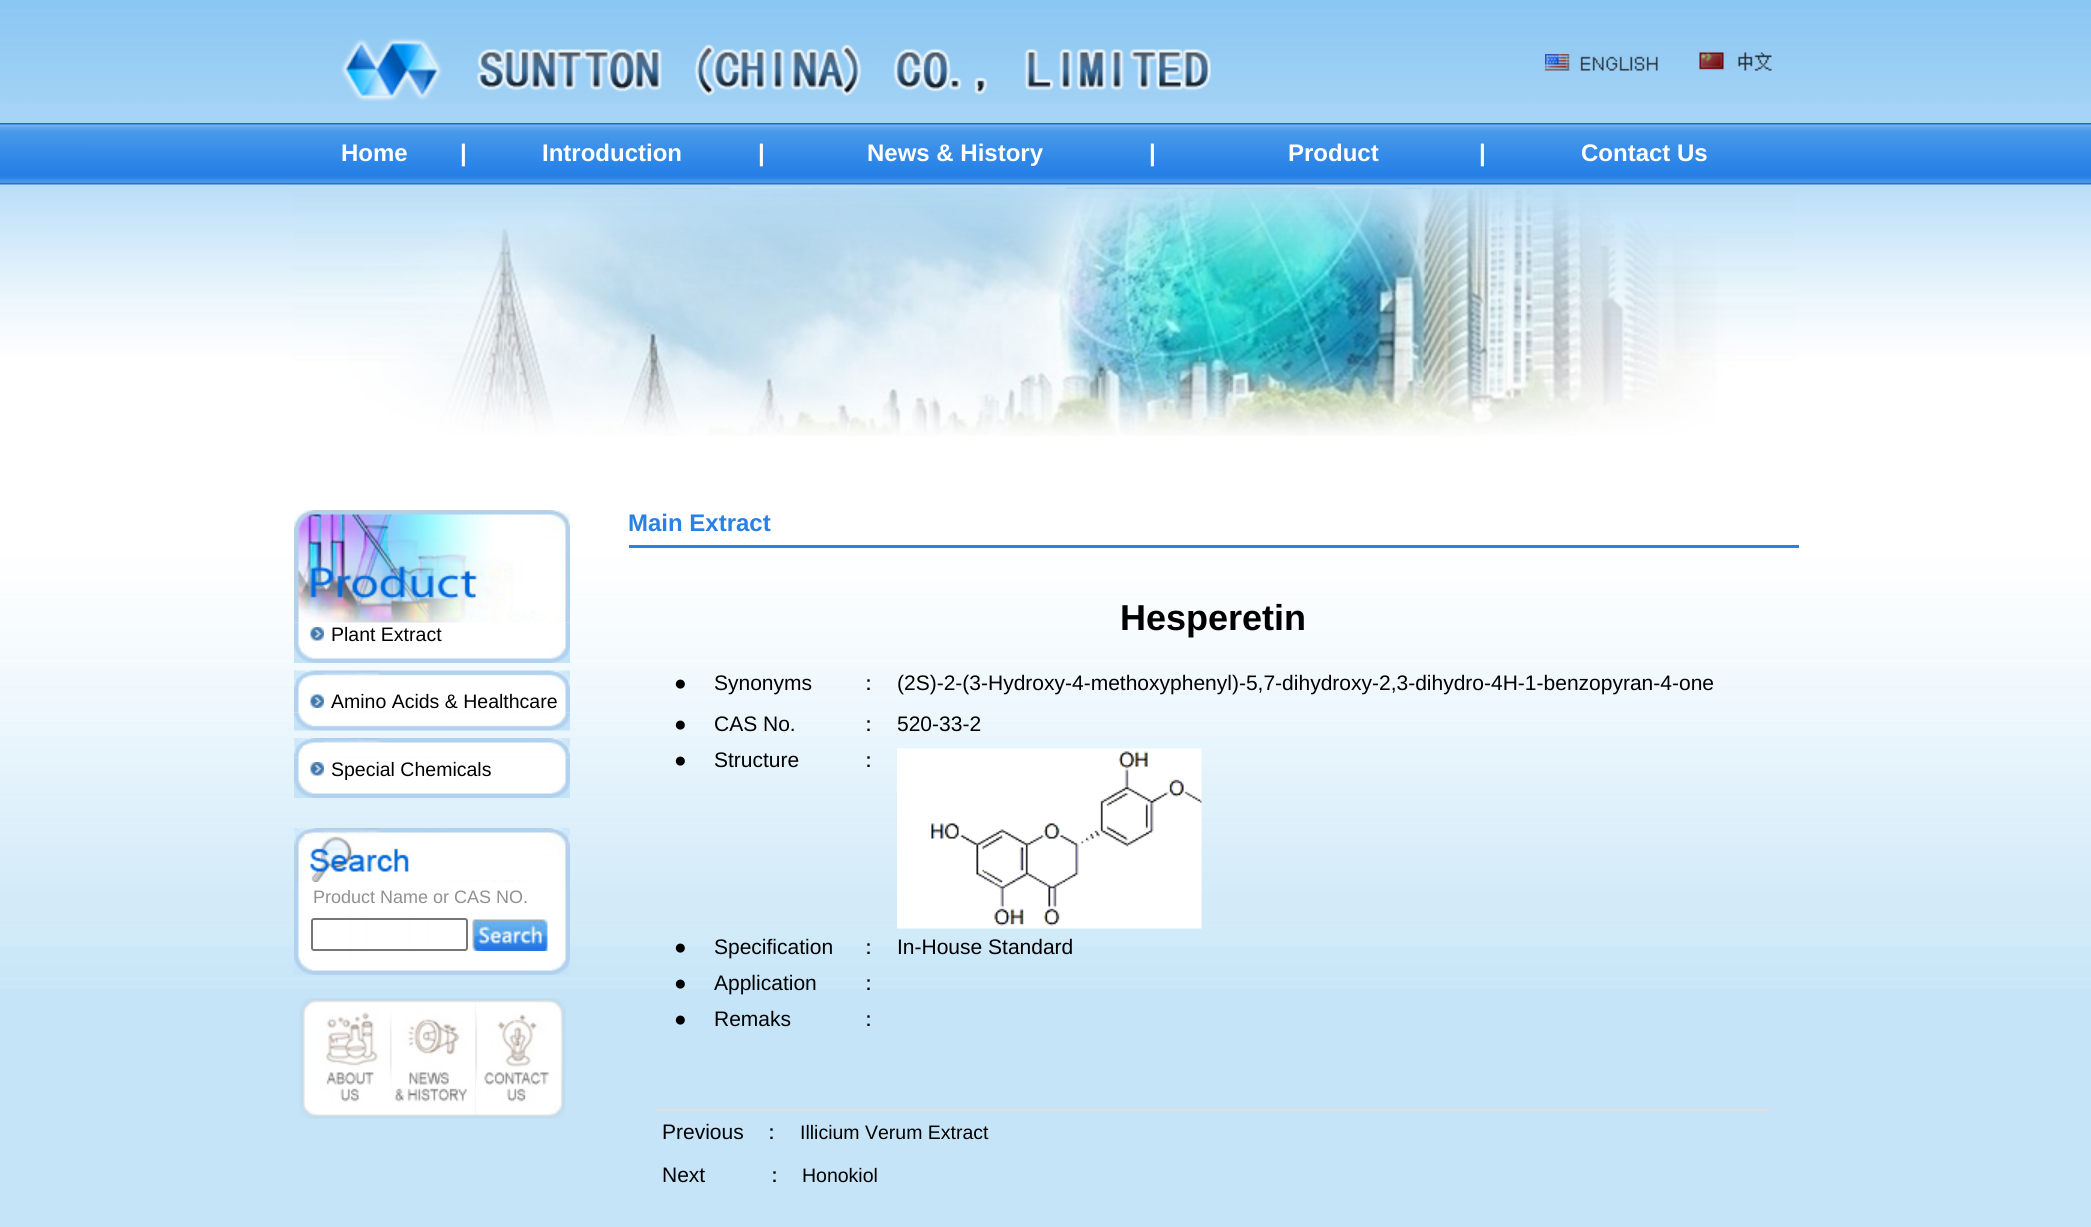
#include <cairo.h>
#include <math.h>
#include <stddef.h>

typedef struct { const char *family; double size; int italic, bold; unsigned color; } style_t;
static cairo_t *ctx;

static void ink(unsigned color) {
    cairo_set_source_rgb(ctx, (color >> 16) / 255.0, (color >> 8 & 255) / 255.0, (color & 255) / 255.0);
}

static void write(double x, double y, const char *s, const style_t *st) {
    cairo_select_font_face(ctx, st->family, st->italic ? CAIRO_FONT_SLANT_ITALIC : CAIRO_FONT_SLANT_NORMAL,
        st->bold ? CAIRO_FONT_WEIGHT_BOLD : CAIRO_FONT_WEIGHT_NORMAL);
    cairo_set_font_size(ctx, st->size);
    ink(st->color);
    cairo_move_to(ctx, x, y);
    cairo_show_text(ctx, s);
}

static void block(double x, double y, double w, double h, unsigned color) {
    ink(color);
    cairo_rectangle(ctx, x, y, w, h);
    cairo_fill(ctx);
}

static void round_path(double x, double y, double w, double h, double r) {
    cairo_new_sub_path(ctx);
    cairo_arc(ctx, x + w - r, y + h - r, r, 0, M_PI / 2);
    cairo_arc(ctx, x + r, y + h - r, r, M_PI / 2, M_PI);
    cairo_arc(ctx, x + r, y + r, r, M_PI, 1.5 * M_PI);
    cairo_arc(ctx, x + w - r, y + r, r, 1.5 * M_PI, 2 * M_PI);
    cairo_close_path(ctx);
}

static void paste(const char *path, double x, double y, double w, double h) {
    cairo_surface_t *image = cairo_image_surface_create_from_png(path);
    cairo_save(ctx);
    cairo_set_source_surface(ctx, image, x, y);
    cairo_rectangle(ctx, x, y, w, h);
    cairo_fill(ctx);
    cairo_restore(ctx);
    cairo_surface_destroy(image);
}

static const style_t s1 = {"Liberation Sans", 24, 0, 1, 0xffffff};
static const style_t s2 = {"Liberation Sans", 19.5, 0, 0, 0x000000};
static const style_t s3 = {"Liberation Sans", 18, 0, 0, 0x909090};
static const style_t s4 = {"Liberation Sans", 24, 0, 1, 0x2781e6};
static const style_t s5 = {"Liberation Sans", 36, 0, 1, 0x000000};
static const style_t s6 = {"Liberation Sans", 21, 0, 0, 0x000000};
static const style_t s7 = {"WenQuanYi Zen Hei Medium", 21, 0, 0, 0x000000};

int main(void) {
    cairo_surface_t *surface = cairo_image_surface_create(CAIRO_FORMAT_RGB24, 2091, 1227);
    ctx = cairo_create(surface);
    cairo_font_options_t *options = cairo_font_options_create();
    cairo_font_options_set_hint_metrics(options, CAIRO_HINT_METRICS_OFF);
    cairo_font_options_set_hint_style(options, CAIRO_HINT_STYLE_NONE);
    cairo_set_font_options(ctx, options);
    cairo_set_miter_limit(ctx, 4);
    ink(0xc5e4f8);
    cairo_paint(ctx);
    paste("pic1.png", 0, 0, 2091, 123);
    paste("pic2.png", 340, 37, 871, 65);
    paste("pic3.png", 1545, 54, 113, 17);
    paste("pic4.png", 1699, 52, 73, 19);
    paste("pic6.png", 0, 184, 2091, 266);
    paste("pic5.png", 0, 123, 2091, 62);
    write(341, 161, "Home", &s1);
    write(460, 161, "|", &s1);
    write(542, 161, "Introduction", &s1);
    write(758, 161, "|", &s1);
    write(867, 161, "News & History", &s1);
    write(1149, 161, "|", &s1);
    write(1288, 161, "Product", &s1);
    write(1479, 161, "|", &s1);
    write(1581, 161, "Contact Us", &s1);
    paste("pic7.png", 294, 187, 1500, 249);
    paste("pic8.png", 0, 450, 2091, 539);
    paste("pic10.png", 294, 622, 276, 23);
    paste("pic9.png", 294, 510, 276, 113);
    paste("pic11.png", 310, 627, 14, 14);
    write(331, 641, "Plant Extract", &s2);
    paste("pic12.png", 294, 645, 276, 18);
    paste("pic13.png", 294, 670, 276, 20);
    paste("pic14.png", 294, 690, 276, 23);
    paste("pic15.png", 310, 694, 14, 14);
    write(331, 708, "Amino Acids & Healthcare", &s2);
    paste("pic16.png", 294, 712, 276, 19);
    paste("pic18.png", 294, 757, 276, 23);
    paste("pic17.png", 294, 738, 276, 20);
    paste("pic11.png", 310, 762, 14, 14);
    write(331, 776, "Special Chemicals", &s2);
    paste("pic12.png", 294, 780, 276, 18);
    paste("pic19.png", 294, 828, 276, 54);
    paste("pic20.png", 294, 882, 276, 75);
    write(313, 903, "Product Name or CAS NO.", &s3);
    round_path(312, 919, 155, 31, 2);
    ink(0x767676);
    cairo_stroke(ctx);
    paste("pic21.png", 472, 919, 76, 32);
    paste("pic12.png", 294, 957, 276, 18);
    paste("pic22.png", 299, 998, 94, 121);
    paste("pic23.png", 393, 998, 83, 121);
    paste("pic24.png", 475, 998, 91, 121);
    write(628, 531, "Main Extract", &s4);
    block(629, 545, 1170, 3, 0x2781e6);
    write(1120, 630, "Hesperetin", &s5);
    write(674, 690, "●", &s6);
    write(714, 690, "Synonyms", &s6);
    write(858, 690, "：", &s7);
    write(897, 690, "(2S)-2-(3-Hydroxy-4-methoxyphenyl)-5,7-dihydroxy-2,3-dihydro-4H-1-benzopyran-4-one", &s6);
    write(674, 731, "●", &s6);
    write(714, 731, "CAS No.", &s6);
    write(858, 731, "：", &s7);
    write(897, 731, "520-33-2", &s6);
    write(674, 767, "●", &s6);
    write(714, 767, "Structure", &s6);
    write(858, 767, "：", &s7);
    paste("pic25.png", 897, 748, 305, 181);
    write(674, 954, "●", &s6);
    write(714, 954, "Specification", &s6);
    write(858, 954, "：", &s7);
    write(897, 954, "In-House Standard", &s6);
    write(674, 990, "●", &s6);
    write(714, 990, "Application", &s6);
    write(858, 990, "：", &s7);
    write(674, 1026, "●", &s6);
    write(714, 1026, "Remaks", &s6);
    write(858, 1026, "：", &s7);
    block(656, 1109, 1116, 2, 0xdfdfdf);
    write(662, 1139, "Previous", &s6);
    write(761, 1139, "：", &s7);
    write(800, 1139, "Illicium Verum Extract", &s2);
    write(662, 1182, "Next", &s6);
    write(764, 1182, "：", &s7);
    write(802, 1182, "Honokiol", &s2);
    cairo_surface_write_to_png(surface, "screenshot.png");
    cairo_font_options_destroy(options);
    cairo_destroy(ctx);
    cairo_surface_destroy(surface);
    return 0;
}
